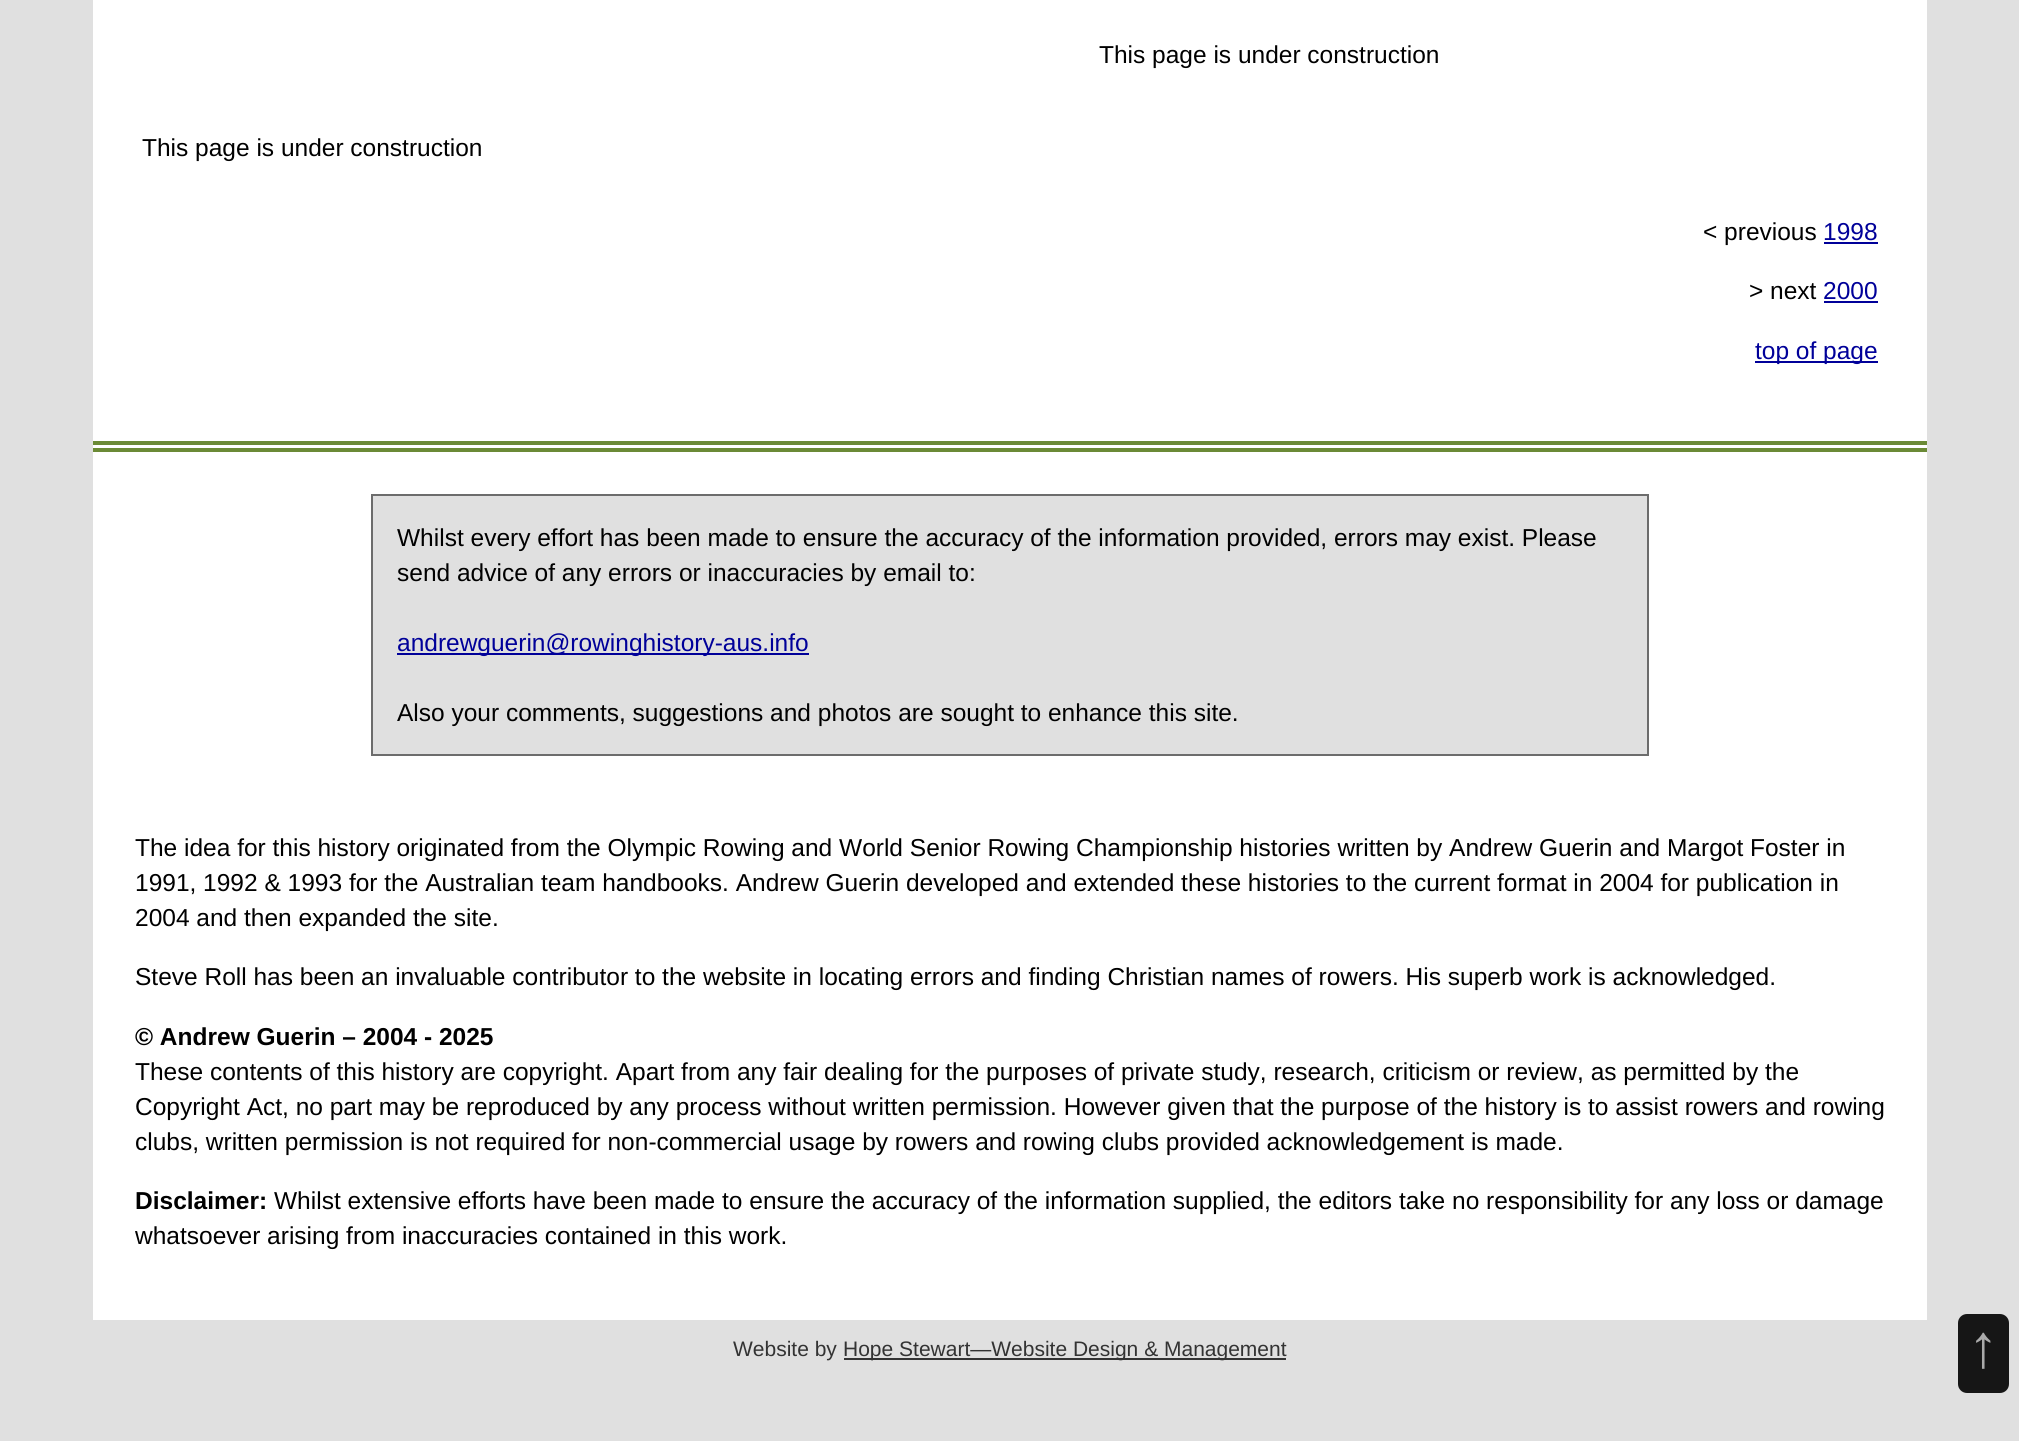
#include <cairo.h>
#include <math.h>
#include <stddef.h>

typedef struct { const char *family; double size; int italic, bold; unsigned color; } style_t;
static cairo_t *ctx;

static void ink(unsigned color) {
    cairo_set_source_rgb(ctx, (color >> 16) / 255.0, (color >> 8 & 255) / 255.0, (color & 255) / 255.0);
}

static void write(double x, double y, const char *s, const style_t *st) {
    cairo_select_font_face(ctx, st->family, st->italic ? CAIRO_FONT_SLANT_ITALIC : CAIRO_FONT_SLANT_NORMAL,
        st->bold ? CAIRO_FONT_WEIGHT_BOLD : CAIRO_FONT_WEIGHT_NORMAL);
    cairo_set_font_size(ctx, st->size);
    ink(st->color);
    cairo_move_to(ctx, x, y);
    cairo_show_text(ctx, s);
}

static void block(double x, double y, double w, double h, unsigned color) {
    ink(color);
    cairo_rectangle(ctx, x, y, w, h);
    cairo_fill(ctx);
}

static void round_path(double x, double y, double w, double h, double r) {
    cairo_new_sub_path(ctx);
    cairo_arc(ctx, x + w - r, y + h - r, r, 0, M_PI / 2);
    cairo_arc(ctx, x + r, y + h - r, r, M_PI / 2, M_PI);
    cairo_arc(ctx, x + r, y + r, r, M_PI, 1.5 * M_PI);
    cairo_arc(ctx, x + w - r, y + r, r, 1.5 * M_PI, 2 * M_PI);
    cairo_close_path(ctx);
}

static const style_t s1 = {"Liberation Sans", 24.5, 0, 0, 0x000000};
static const style_t s2 = {"Liberation Sans", 24.5, 0, 0, 0x000099};
static const style_t s3 = {"Liberation Sans", 24.5, 0, 1, 0x000000};
static const style_t s4 = {"Liberation Sans", 21, 0, 0, 0x333333};
static const style_t s5 = {"Liberation Sans", 61, 0, 0, 0xaaaaaa};

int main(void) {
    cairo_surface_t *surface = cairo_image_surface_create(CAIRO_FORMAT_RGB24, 2019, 1441);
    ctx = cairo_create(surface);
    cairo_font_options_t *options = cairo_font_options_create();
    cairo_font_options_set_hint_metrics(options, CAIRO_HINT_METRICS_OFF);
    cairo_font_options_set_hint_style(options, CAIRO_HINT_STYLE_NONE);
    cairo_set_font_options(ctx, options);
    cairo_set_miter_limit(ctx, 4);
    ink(0xe0e0e0);
    cairo_paint(ctx);
    block(93, 0, 1834, 1320, 0xffffff);
    block(93, 441, 1834, 4, 0x6b8a36);
    write(1099, 63, "This page is under construction", &s1);
    write(142, 156, "This page is under construction", &s1);
    write(1703, 240, "< previous", &s1);
    write(1823, 240, "1998", &s2);
    block(1824, 242, 54, 2, 0x000099);
    write(1749, 299, "> next", &s1);
    write(1823, 299, "2000", &s2);
    block(1824, 301, 54, 2, 0x000099);
    block(1755, 361, 123, 2, 0x000099);
    write(1755, 359, "top of page", &s2);
    block(93, 448, 1834, 4, 0x6b8a36);
    ink(0xe0e0e0);
    cairo_rectangle(ctx, 372, 495, 1276, 260);
    cairo_fill_preserve(ctx);
    ink(0x6c6c6c);
    cairo_stroke(ctx);
    write(397, 546, "Whilst every effort has been made to ensure the accuracy of the information provided, errors may exist. Please", &s1);
    write(397, 581, "send advice of any errors or inaccuracies by email to:", &s1);
    block(397, 653, 412, 2, 0x000099);
    write(397, 651, "andrewguerin@rowinghistory-aus.info", &s2);
    write(397, 721, "Also your comments, suggestions and photos are sought to enhance this site.", &s1);
    write(135, 856, "The idea for this history originated from the Olympic Rowing and World Senior Rowing Championship histories written by Andrew Guerin and Margot Foster in", &s1);
    write(135, 891, "1991, 1992 & 1993 for the Australian team handbooks. Andrew Guerin developed and extended these histories to the current format in 2004 for publication in", &s1);
    write(135, 926, "2004 and then expanded the site.", &s1);
    write(135, 985, "Steve Roll has been an invaluable contributor to the website in locating errors and finding Christian names of rowers. His superb work is acknowledged.", &s1);
    write(135, 1045, "© Andrew Guerin – 2004 - 2025", &s3);
    write(135, 1080, "These contents of this history are copyright. Apart from any fair dealing for the purposes of private study, research, criticism or review, as permitted by the", &s1);
    write(135, 1115, "Copyright Act, no part may be reproduced by any process without written permission. However given that the purpose of the history is to assist rowers and rowing", &s1);
    write(135, 1150, "clubs, written permission is not required for non-commercial usage by rowers and rowing clubs provided acknowledgement is made.", &s1);
    write(135, 1209, "Disclaimer:", &s3);
    write(274, 1209, "Whilst extensive efforts have been made to ensure the accuracy of the information supplied, the editors take no responsibility for any loss or damage", &s1);
    write(135, 1244, "whatsoever arising from inaccuracies contained in this work.", &s1);
    write(733, 1356, "Website by", &s4);
    block(844, 1358, 442, 2, 0x333333);
    write(843, 1356, "Hope Stewart—Website Design & Management", &s4);
    ink(0x161616);
    round_path(1958, 1314, 51, 79, 9);
    cairo_fill(ctx);
    write(1968, 1367, "↑", &s5);
    cairo_surface_write_to_png(surface, "screenshot.png");
    cairo_font_options_destroy(options);
    cairo_destroy(ctx);
    cairo_surface_destroy(surface);
    return 0;
}
